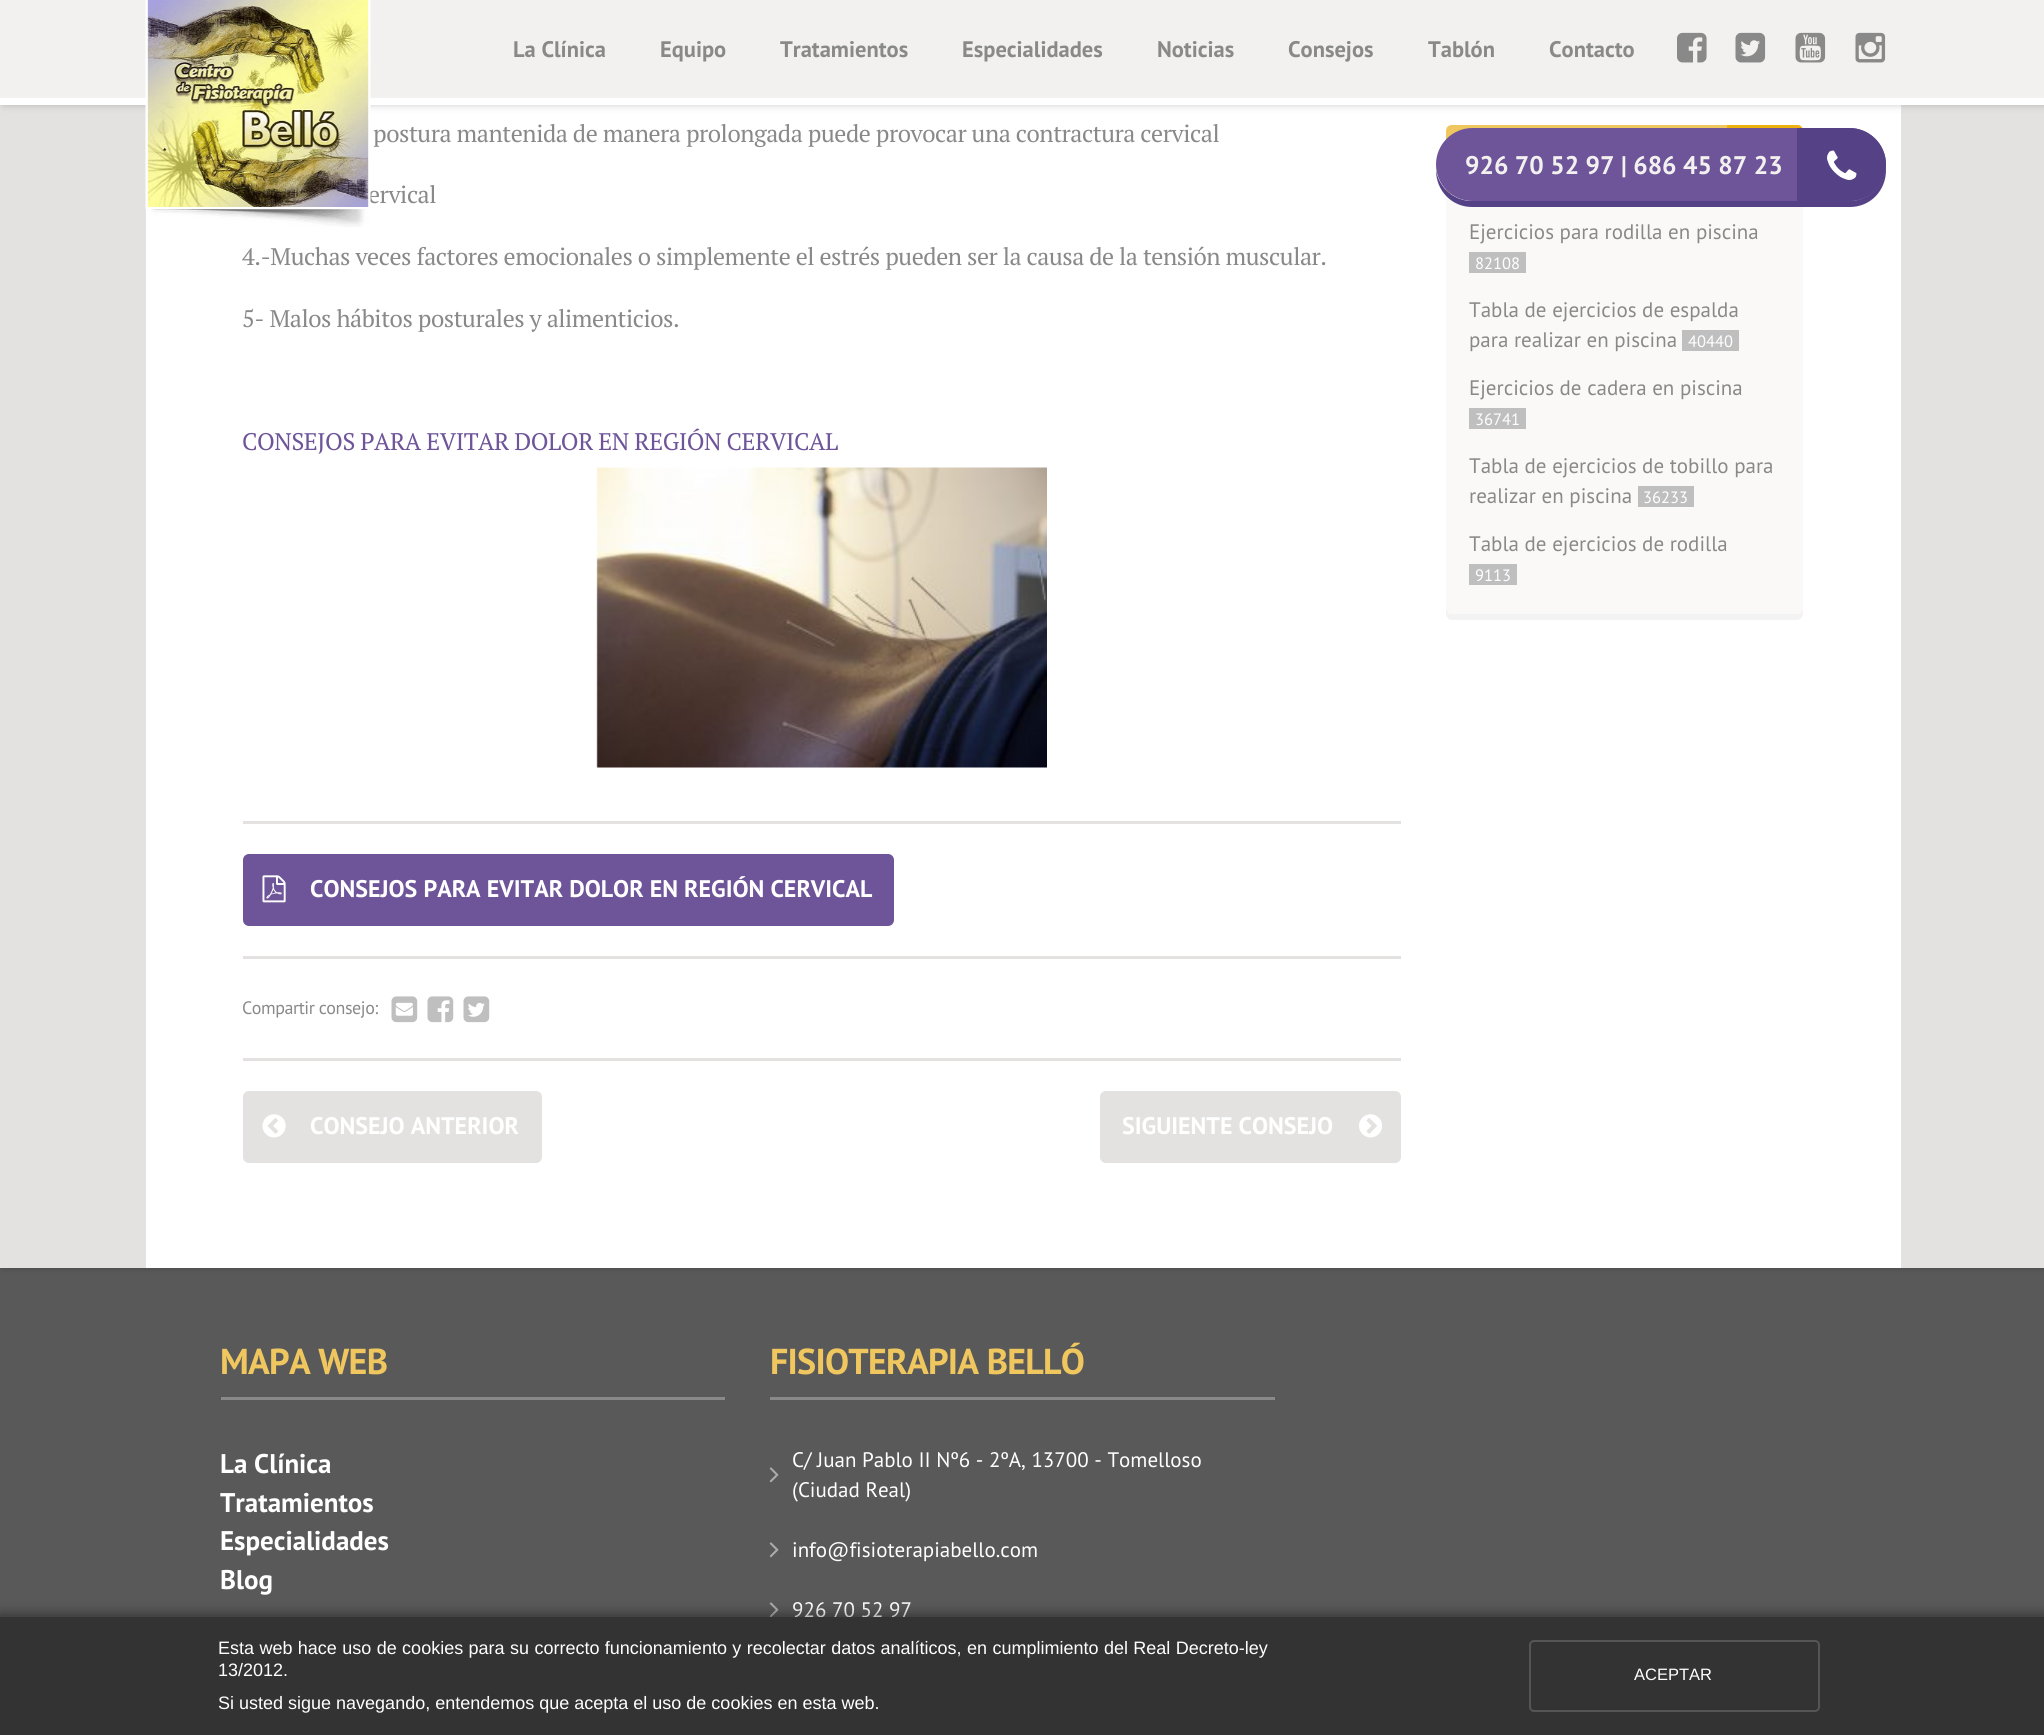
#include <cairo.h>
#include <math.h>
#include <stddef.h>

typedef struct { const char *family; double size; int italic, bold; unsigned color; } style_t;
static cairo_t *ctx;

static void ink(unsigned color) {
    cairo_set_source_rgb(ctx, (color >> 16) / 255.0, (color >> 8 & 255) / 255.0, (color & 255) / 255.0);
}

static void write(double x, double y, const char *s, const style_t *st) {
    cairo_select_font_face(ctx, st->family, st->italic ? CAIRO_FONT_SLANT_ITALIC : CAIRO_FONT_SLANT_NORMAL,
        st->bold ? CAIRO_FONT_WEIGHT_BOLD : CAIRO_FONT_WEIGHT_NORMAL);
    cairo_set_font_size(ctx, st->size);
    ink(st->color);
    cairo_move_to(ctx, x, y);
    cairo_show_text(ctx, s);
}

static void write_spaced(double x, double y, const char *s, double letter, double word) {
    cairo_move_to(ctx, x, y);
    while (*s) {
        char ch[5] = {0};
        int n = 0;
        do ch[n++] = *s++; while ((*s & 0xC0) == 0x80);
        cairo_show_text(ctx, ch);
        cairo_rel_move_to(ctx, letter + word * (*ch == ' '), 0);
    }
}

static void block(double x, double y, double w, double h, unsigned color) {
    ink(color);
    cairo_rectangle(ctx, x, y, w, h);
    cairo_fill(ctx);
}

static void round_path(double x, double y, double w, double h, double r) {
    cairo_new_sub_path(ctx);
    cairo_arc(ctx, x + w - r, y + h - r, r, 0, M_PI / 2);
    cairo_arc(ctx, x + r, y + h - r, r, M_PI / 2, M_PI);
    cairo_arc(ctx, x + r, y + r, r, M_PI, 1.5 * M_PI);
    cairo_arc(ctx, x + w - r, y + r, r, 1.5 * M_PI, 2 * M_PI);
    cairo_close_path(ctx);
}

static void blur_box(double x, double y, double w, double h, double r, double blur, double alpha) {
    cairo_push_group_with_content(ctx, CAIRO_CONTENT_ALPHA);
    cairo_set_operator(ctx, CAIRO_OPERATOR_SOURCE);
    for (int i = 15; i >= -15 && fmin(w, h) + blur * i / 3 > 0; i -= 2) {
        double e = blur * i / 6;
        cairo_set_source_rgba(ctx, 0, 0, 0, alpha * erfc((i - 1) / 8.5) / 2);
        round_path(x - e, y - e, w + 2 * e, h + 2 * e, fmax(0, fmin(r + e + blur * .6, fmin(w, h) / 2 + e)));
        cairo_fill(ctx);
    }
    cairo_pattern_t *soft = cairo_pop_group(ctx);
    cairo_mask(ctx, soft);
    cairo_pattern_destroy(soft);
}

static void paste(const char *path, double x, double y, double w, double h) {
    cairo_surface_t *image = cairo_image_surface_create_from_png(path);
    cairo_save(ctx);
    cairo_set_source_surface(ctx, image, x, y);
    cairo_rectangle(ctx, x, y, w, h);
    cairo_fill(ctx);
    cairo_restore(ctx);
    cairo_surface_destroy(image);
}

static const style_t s1 = {"PT Sans", 22.5, 0, 1, 0x898989};
static const style_t s2 = {"PT Sans", 25.5, 0, 1, 0xf2f1ef};
static const style_t s3 = {"PT Sans", 24, 0, 1, 0xffffff};
static const style_t s4 = {"PT Sans", 21, 0, 0, 0x898989};
static const style_t s5 = {"PT Sans", 16.5, 0, 0, 0xffffff};
static const style_t s6 = {"PT Sans", 27, 0, 1, 0xffffff};
static const style_t s7 = {"PT Sans", 21, 0, 0, 0xffffff};
static const style_t s8 = {"Liberation Sans", 18, 0, 0, 0xffffff};
static const style_t s9 = {"Liberation Sans", 16.5, 0, 0, 0xffffff};

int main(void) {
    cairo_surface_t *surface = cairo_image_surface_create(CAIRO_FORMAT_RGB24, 2044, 1735);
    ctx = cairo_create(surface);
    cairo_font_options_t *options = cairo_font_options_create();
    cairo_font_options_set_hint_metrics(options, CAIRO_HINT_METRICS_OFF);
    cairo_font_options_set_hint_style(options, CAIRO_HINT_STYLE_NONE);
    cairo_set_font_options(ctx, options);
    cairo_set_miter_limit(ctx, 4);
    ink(0xe3e2e0);
    cairo_paint(ctx);
    block(0, 1268, 2044, 349, 0x595959);
    cairo_save(ctx);
    cairo_set_fill_rule(ctx, CAIRO_FILL_RULE_EVEN_ODD);
    cairo_new_path(ctx);
    cairo_move_to(ctx, 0, 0);
    cairo_line_to(ctx, 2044, 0);
    cairo_line_to(ctx, 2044, 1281);
    cairo_line_to(ctx, 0, 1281);
    cairo_close_path(ctx);
    cairo_move_to(ctx, 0, -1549);
    cairo_line_to(ctx, 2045, -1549);
    cairo_line_to(ctx, 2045, 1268);
    cairo_line_to(ctx, 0, 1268);
    cairo_close_path(ctx);
    cairo_clip(ctx);
    ink(0x000000);
    blur_box(3, -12, 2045, 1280, 0, 4, 0.2);
    cairo_restore(ctx);
    block(146, 105, 1755, 1163, 0xffffff);
    ink(0x000000);
    blur_box(3, 0, 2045, 105, 0, 4, 0.2);
    block(0, 0, 2044, 98, 0xf2f1ef);
    block(0, 98, 2044, 7, 0xffffff);
    cairo_select_font_face(ctx, "PT Serif", CAIRO_FONT_SLANT_NORMAL, CAIRO_FONT_WEIGHT_NORMAL);
    cairo_set_font_size(ctx, 24);
    ink(0x898989);
    write_spaced(368, 203, "ervical", -0.45, 0);
    paste("pic1.png", 145, 0, 226, 227);
    write(513, 57, "La Clínica", &s1);
    write(660, 57, "Equipo", &s1);
    write(780, 57, "Tratamientos", &s1);
    write(962, 57, "Especialidades", &s1);
    write(1157, 57, "Noticias", &s1);
    write(1288, 57, "Consejos", &s1);
    write(1428, 57, "Tablón", &s1);
    write(1549, 57, "Contacto", &s1);
    paste("pic2.png", 1677, 32, 30, 31);
    paste("pic3.png", 1735, 32, 31, 31);
    paste("pic4.png", 1795, 32, 31, 31);
    paste("pic5.png", 1855, 32, 31, 31);
    ink(0xfaf9f8);
    round_path(1446, 125, 357, 489, 5);
    cairo_fill(ctx);
    ink(0xefc75e);
    cairo_new_path(ctx);
    cairo_move_to(ctx, 1452, 125);
    cairo_line_to(ctx, 1797, 125);
    cairo_curve_to(ctx, 1800.5, 125, 1803, 127.5, 1803, 131);
    cairo_line_to(ctx, 1803, 194);
    cairo_line_to(ctx, 1446, 194);
    cairo_line_to(ctx, 1446, 131);
    cairo_curve_to(ctx, 1446, 127.5, 1448.5, 125, 1452, 125);
    cairo_close_path(ctx);
    cairo_fill(ctx);
    ink(0xeeb00c);
    cairo_new_path(ctx);
    cairo_move_to(ctx, 1727, 125);
    cairo_line_to(ctx, 1797, 125);
    cairo_curve_to(ctx, 1800.5, 125, 1803, 127.5, 1803, 131);
    cairo_line_to(ctx, 1803, 194);
    cairo_line_to(ctx, 1727, 194);
    cairo_close_path(ctx);
    cairo_fill(ctx);
    cairo_set_source_rgba(ctx, 0, 0, 0, 0.05);
    cairo_new_path(ctx);
    cairo_move_to(ctx, 1446, 608);
    cairo_line_to(ctx, 1446, 614);
    cairo_curve_to(ctx, 1446, 617, 1449, 620, 1452, 620);
    cairo_line_to(ctx, 1797, 620);
    cairo_curve_to(ctx, 1800, 620, 1803, 617, 1803, 614);
    cairo_line_to(ctx, 1803, 608);
    cairo_curve_to(ctx, 1803, 611, 1800, 614, 1797, 614);
    cairo_line_to(ctx, 1452, 614);
    cairo_curve_to(ctx, 1449, 614, 1446, 611, 1446, 608);
    cairo_close_path(ctx);
    cairo_fill(ctx);
    ink(0xfaf9f8);
    cairo_new_path(ctx);
    cairo_move_to(ctx, 1446, 194);
    cairo_line_to(ctx, 1803, 194);
    cairo_line_to(ctx, 1803, 608);
    cairo_curve_to(ctx, 1803, 611.5, 1800.5, 614, 1797, 614);
    cairo_line_to(ctx, 1452, 614);
    cairo_curve_to(ctx, 1448.5, 614, 1446, 611.5, 1446, 608);
    cairo_close_path(ctx);
    cairo_fill(ctx);
    ink(0x554186);
    cairo_new_path(ctx);
    cairo_move_to(ctx, 1436, 170);
    cairo_curve_to(ctx, 1436, 191, 1452, 207, 1472, 207);
    cairo_line_to(ctx, 1850, 207);
    cairo_curve_to(ctx, 1870, 207, 1886, 191, 1886, 170);
    cairo_line_to(ctx, 1885, 164);
    cairo_curve_to(ctx, 1885, 185, 1869, 201, 1849, 201);
    cairo_line_to(ctx, 1472, 201);
    cairo_curve_to(ctx, 1454, 201, 1439, 188, 1436, 170);
    cairo_close_path(ctx);
    cairo_fill(ctx);
    ink(0x6e5499);
    round_path(1436, 128, 450, 73, 36.5);
    cairo_fill(ctx);
    write(1465, 174, "926 70 52 97 | 686 45 87 23", &s2);
    ink(0x554186);
    cairo_new_path(ctx);
    cairo_move_to(ctx, 1797, 128);
    cairo_line_to(ctx, 1849.5, 128);
    cairo_curve_to(ctx, 1869.5, 128, 1886, 144.5, 1886, 164.5);
    cairo_curve_to(ctx, 1886, 184.5, 1869.5, 201, 1849.5, 201);
    cairo_line_to(ctx, 1797, 201);
    cairo_close_path(ctx);
    cairo_fill(ctx);
    paste("pic6.png", 1827, 150, 30, 30);
    block(243, 821, 1158, 3, 0xe3e2e0);
    cairo_select_font_face(ctx, "PT Serif", CAIRO_FONT_SLANT_NORMAL, CAIRO_FONT_WEIGHT_NORMAL);
    cairo_set_font_size(ctx, 24);
    ink(0x898989);
    write_spaced(373, 142, "postura mantenida de manera prolongada puede provocar una contractura cervical", -0.45, 0);
    write_spaced(242, 265, "4.-Muchas veces factores emocionales o simplemente el estrés pueden ser la causa de la tensión muscular.", -0.45, 0);
    write_spaced(242, 327, "5- Malos hábitos posturales y alimenticios.", -0.45, 0);
    ink(0x6e5499);
    write_spaced(242, 450, "CONSEJOS PARA EVITAR DOLOR EN REGIÓN CERVICAL", -0.45, 0);
    paste("pic7.png", 596, 467, 451, 301);
    block(243, 956, 1158, 3, 0xe3e2e0);
    ink(0x6e5499);
    round_path(243, 854, 651, 72, 6);
    cairo_fill(ctx);
    paste("pic8.png", 262, 875, 24, 28);
    write(310, 897, "CONSEJOS PARA EVITAR DOLOR EN REGIÓN CERVICAL", &s3);
    block(243, 1058, 1158, 3, 0xe3e2e0);
    cairo_select_font_face(ctx, "PT Sans", CAIRO_FONT_SLANT_NORMAL, CAIRO_FONT_WEIGHT_NORMAL);
    cairo_set_font_size(ctx, 18);
    ink(0x898989);
    write_spaced(242, 1014, "Compartir consejo:", -0.45, 0);
    paste("pic9.png", 391, 996, 27, 27);
    paste("pic10.png", 427, 996, 27, 27);
    paste("pic11.png", 463, 996, 27, 27);
    ink(0xe3e2e0);
    round_path(243, 1091, 299, 72, 6);
    cairo_fill(ctx);
    paste("pic12.png", 262, 1114, 24, 24);
    write(310, 1134, "CONSEJO ANTERIOR", &s3);
    ink(0xe3e2e0);
    round_path(1100, 1091, 301, 72, 6);
    cairo_fill(ctx);
    write(1122, 1134, "SIGUIENTE CONSEJO", &s3);
    paste("pic13.png", 1359, 1114, 23, 24);
    write(1469, 239, "Ejercicios para rodilla en piscina", &s4);
    block(1469, 252, 57, 21, 0xbfbfbf);
    write(1475, 269, "82108", &s5);
    write(1469, 317, "Tabla de ejercicios de espalda", &s4);
    write(1469, 347, "para realizar en piscina", &s4);
    block(1682, 330, 57, 21, 0xbfbfbf);
    write(1688, 347, "40440", &s5);
    write(1469, 395, "Ejercicios de cadera en piscina", &s4);
    block(1469, 408, 57, 21, 0xbfbfbf);
    write(1475, 425, "36741", &s5);
    write(1469, 473, "Tabla de ejercicios de tobillo para", &s4);
    write(1469, 503, "realizar en piscina", &s4);
    block(1638, 486, 56, 21, 0xbfbfbf);
    write(1643, 503, "36233", &s5);
    write(1469, 551, "Tabla de ejercicios de rodilla", &s4);
    block(1469, 564, 48, 21, 0xbfbfbf);
    write(1475, 581, "9113", &s5);
    block(221, 1397, 504, 3, 0x898989);
    cairo_select_font_face(ctx, "PT Sans", CAIRO_FONT_SLANT_NORMAL, CAIRO_FONT_WEIGHT_BOLD);
    cairo_set_font_size(ctx, 36);
    ink(0xefc75e);
    write_spaced(220, 1374, "MAPA WEB", -0.75, 0);
    write(220, 1473, "La Clínica", &s6);
    write(220, 1512, "Tratamientos", &s6);
    write(220, 1550, "Especialidades", &s6);
    write(220, 1589, "Blog", &s6);
    block(770, 1397, 505, 3, 0x898989);
    cairo_set_font_size(ctx, 36);
    ink(0xefc75e);
    write_spaced(770, 1374, "FISIOTERAPIA BELLÓ", -0.75, 0);
    write(792, 1467, "C/ Juan Pablo II Nº6 - 2ºA, 13700 - Tomelloso", &s7);
    paste("pic14.png", 769, 1467, 10, 16);
    write(792, 1497, "(Ciudad Real)", &s7);
    paste("pic14.png", 769, 1542, 10, 16);
    write(792, 1557, "info@fisioterapiabello.com", &s7);
    paste("pic15.png", 769, 1602, 10, 15);
    write(792, 1617, "926 70 52 97", &s7);
    ink(0x000000);
    blur_box(-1, 1614, 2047, 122, 0, 6, 0.4);
    block(0, 1617, 2044, 118, 0x333333);
    cairo_select_font_face(ctx, "Liberation Sans", CAIRO_FONT_SLANT_NORMAL, CAIRO_FONT_WEIGHT_NORMAL);
    cairo_set_font_size(ctx, 18);
    ink(0xffffff);
    write_spaced(218, 1654, "Esta web hace uso de cookies para su correcto funcionamiento y recolectar datos analíticos, en cumplimiento del Real Decreto-ley", 0, 0.4);
    write(218, 1676, "13/2012.", &s8);
    write(218, 1709, "Si usted sigue navegando, entendemos que acepta el uso de cookies en esta web.", &s8);
    round_path(1530, 1641, 289, 70, 4);
    ink(0x555555);
    cairo_stroke(ctx);
    write(1634, 1680, "ACEPTAR", &s9);
    cairo_surface_write_to_png(surface, "screenshot.png");
    cairo_font_options_destroy(options);
    cairo_destroy(ctx);
    cairo_surface_destroy(surface);
    return 0;
}
